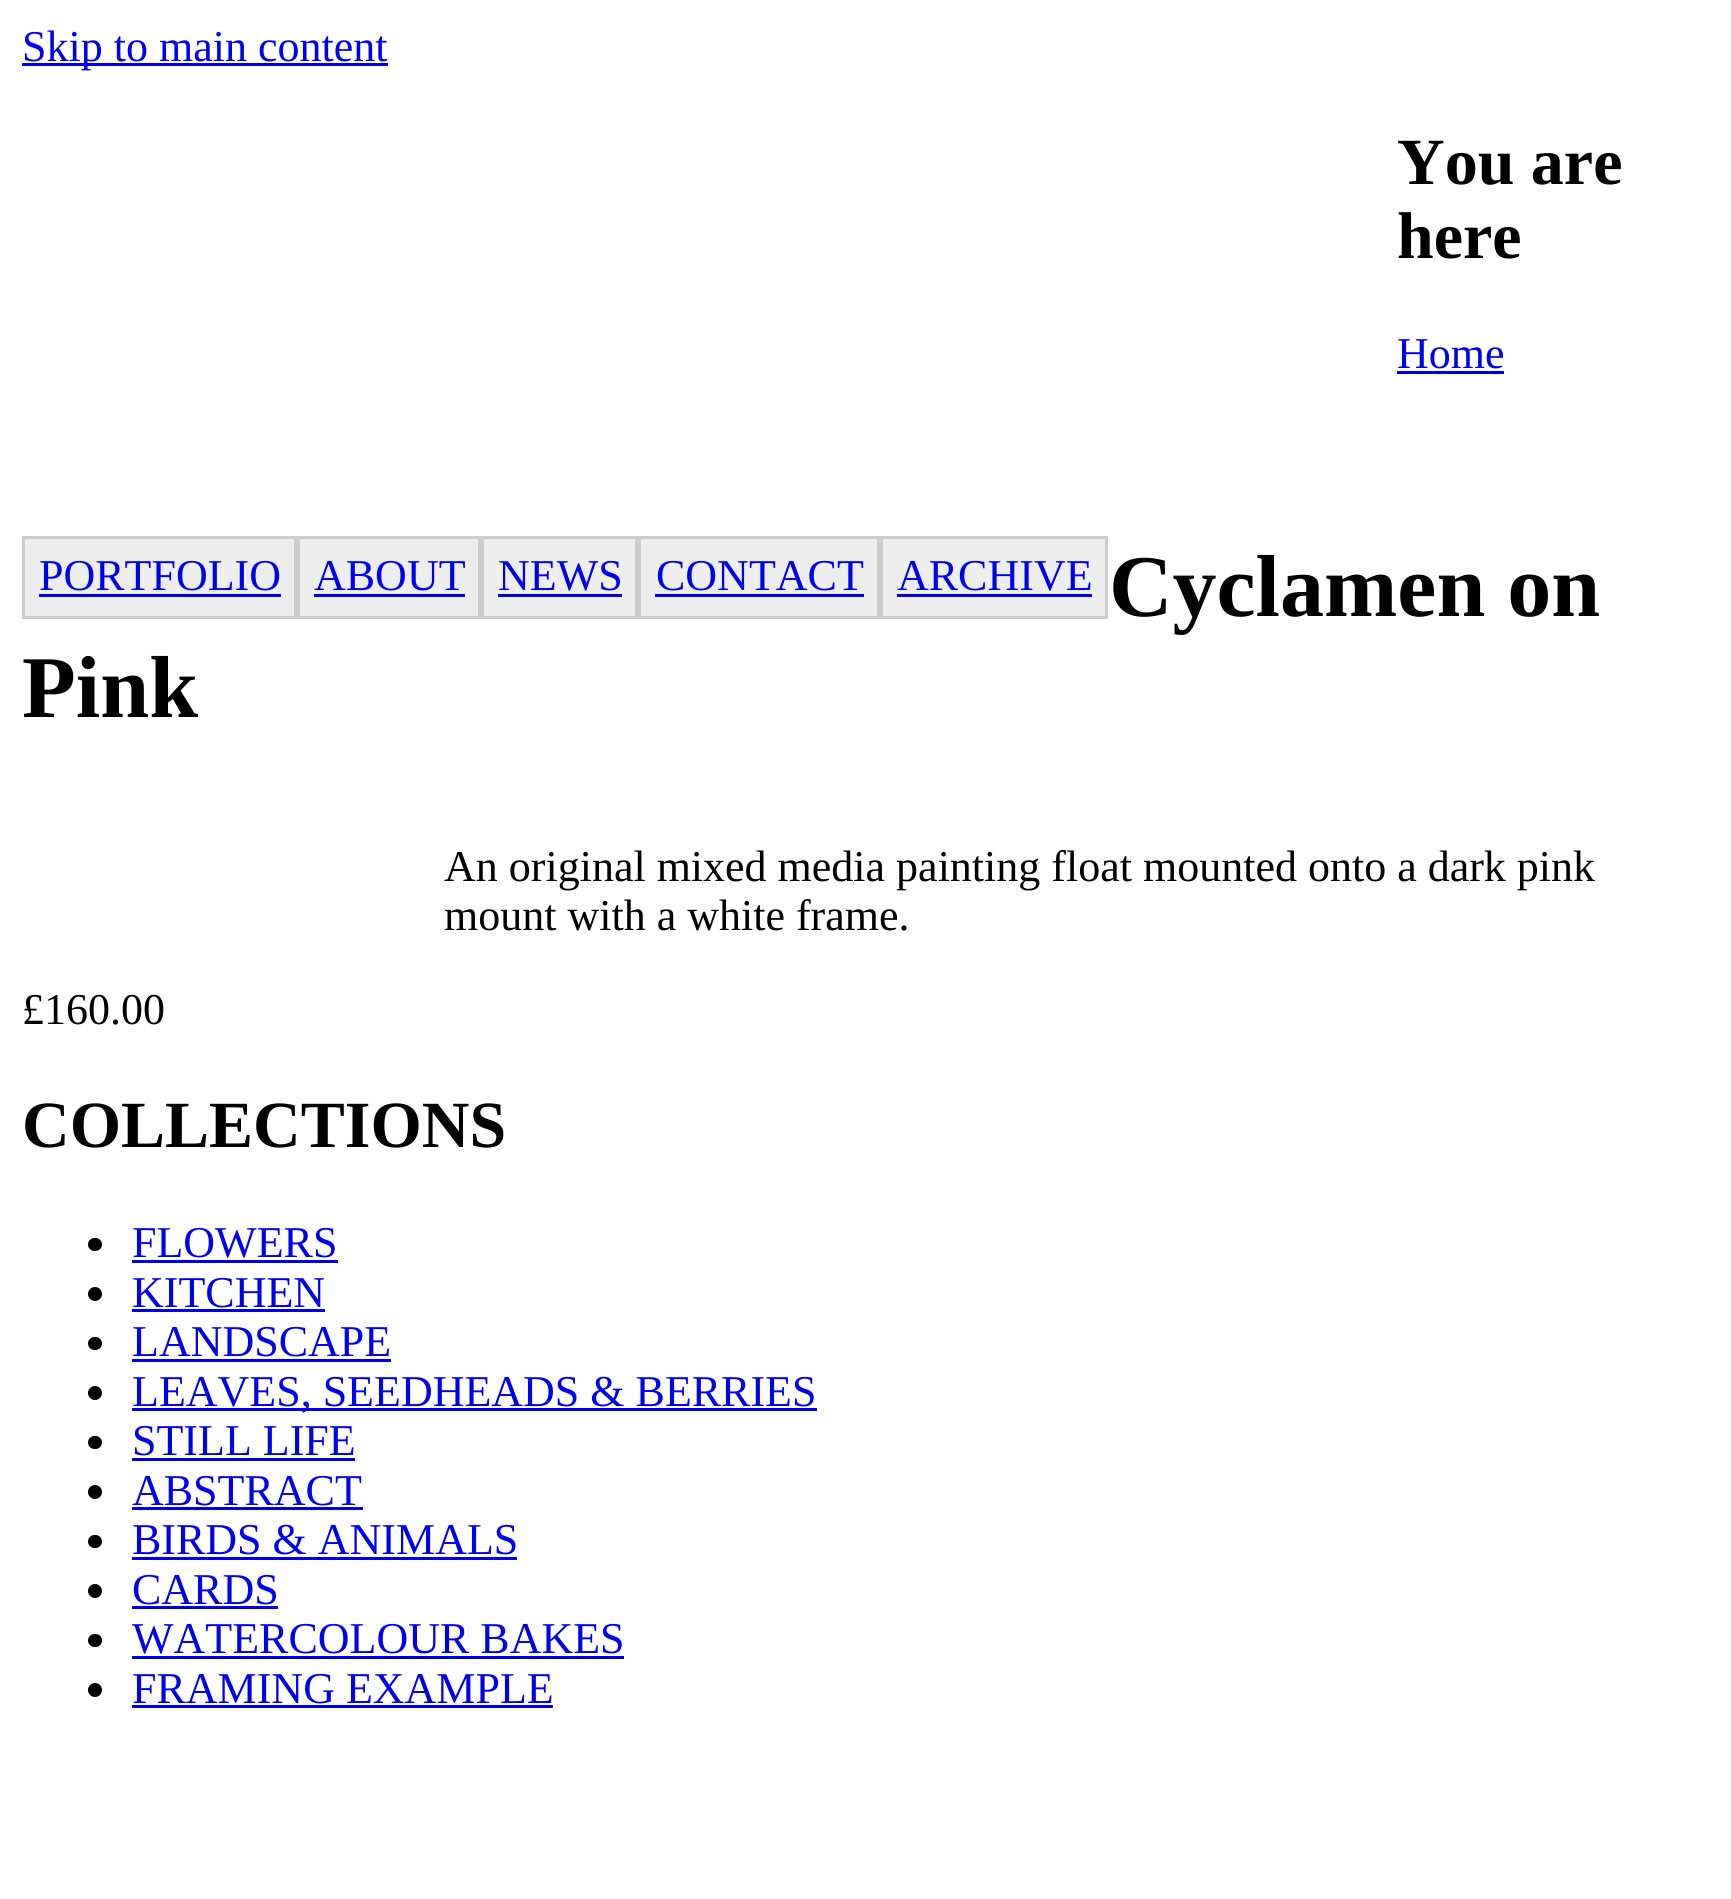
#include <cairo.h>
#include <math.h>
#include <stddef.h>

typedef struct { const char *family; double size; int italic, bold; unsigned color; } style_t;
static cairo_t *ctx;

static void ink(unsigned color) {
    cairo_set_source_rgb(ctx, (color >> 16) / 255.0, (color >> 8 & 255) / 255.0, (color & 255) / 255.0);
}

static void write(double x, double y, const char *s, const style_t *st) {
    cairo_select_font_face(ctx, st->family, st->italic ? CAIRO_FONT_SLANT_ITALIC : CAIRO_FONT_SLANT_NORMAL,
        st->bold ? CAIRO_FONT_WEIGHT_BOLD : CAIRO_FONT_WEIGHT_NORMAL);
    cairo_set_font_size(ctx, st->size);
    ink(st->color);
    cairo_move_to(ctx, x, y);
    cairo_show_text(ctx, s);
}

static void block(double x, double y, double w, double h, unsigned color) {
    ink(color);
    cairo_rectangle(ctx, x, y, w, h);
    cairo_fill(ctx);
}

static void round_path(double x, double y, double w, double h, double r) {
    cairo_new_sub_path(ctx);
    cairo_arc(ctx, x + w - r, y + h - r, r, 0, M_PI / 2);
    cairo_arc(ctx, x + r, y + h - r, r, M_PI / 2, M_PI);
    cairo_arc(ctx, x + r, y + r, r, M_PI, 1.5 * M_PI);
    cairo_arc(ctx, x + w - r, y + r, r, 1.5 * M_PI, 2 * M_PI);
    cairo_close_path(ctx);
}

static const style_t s1 = {"Liberation Serif", 44, 0, 0, 0x0000ee};
static const style_t s2 = {"Liberation Serif", 66, 0, 1, 0x000000};
static const style_t s3 = {"Liberation Serif", 88, 0, 1, 0x000000};
static const style_t s4 = {"Liberation Serif", 44, 0, 0, 0x000000};

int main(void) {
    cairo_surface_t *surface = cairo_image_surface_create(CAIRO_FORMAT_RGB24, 1731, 1899);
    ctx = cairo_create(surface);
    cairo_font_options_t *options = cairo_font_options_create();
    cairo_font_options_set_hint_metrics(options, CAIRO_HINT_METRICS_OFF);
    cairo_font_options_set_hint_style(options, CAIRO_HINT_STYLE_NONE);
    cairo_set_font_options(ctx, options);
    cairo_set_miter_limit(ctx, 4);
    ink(0xffffff);
    cairo_paint(ctx);
    block(22, 63, 366, 3, 0x0000ee);
    write(22, 61, "Skip to main content", &s1);
    write(1397, 184, "You are", &s2);
    write(1397, 258, "here", &s2);
    write(1397, 368, "Home", &s1);
    block(1397, 371, 107, 3, 0x0000ee);
    ink(0xeeeeee);
    cairo_rectangle(ctx, 23.5, 537.5, 272, 80);
    cairo_fill_preserve(ctx);
    ink(0xcccccc);
    cairo_set_line_width(ctx, 3);
    cairo_stroke(ctx);
    write(39, 590, "PORTFOLIO", &s1);
    block(39, 594, 242, 3, 0x0000ee);
    ink(0xeeeeee);
    cairo_rectangle(ctx, 298.5, 537.5, 181, 80);
    cairo_fill_preserve(ctx);
    ink(0xcccccc);
    cairo_stroke(ctx);
    write(314, 590, "ABOUT", &s1);
    block(314, 594, 151, 3, 0x0000ee);
    ink(0xeeeeee);
    cairo_rectangle(ctx, 482.5, 537.5, 154, 80);
    cairo_fill_preserve(ctx);
    ink(0xcccccc);
    cairo_stroke(ctx);
    write(498, 590, "NEWS", &s1);
    block(498, 594, 124, 3, 0x0000ee);
    ink(0xeeeeee);
    cairo_rectangle(ctx, 639.5, 537.5, 239, 80);
    cairo_fill_preserve(ctx);
    ink(0xcccccc);
    cairo_stroke(ctx);
    write(656, 590, "CONTACT", &s1);
    block(655, 594, 209, 3, 0x0000ee);
    ink(0xeeeeee);
    cairo_rectangle(ctx, 881.5, 537.5, 225, 80);
    cairo_fill_preserve(ctx);
    ink(0xcccccc);
    cairo_stroke(ctx);
    write(897, 590, "ARCHIVE", &s1);
    block(897, 594, 195, 3, 0x0000ee);
    write(1109, 616, "Cyclamen on", &s3);
    write(22, 717, "Pink", &s3);
    write(444, 881, "An original mixed media painting float mounted onto a dark pink", &s4);
    write(444, 930, "mount with a white frame.", &s4);
    write(22, 1024, "£160.00", &s4);
    write(22, 1147, "COLLECTIONS", &s2);
    round_path(88, 1238, 14, 13, 6.5);
    cairo_fill(ctx);
    write(132, 1257, "FLOWERS", &s1);
    block(132, 1260, 206, 3, 0x0000ee);
    ink(0x000000);
    cairo_new_path(ctx);
    cairo_arc(ctx, 95, 1294, 7, 0, 2 * M_PI);
    cairo_fill(ctx);
    write(132, 1307, "KITCHEN", &s1);
    block(132, 1309, 193, 3, 0x0000ee);
    ink(0x000000);
    round_path(88, 1337, 14, 13, 6.5);
    cairo_fill(ctx);
    write(132, 1356, "LANDSCAPE", &s1);
    block(132, 1359, 259, 3, 0x0000ee);
    ink(0x000000);
    cairo_new_path(ctx);
    cairo_arc(ctx, 95, 1393, 7, 0, 2 * M_PI);
    cairo_fill(ctx);
    block(132, 1408, 685, 3, 0x0000ee);
    write(132, 1406, "LEAVES, SEEDHEADS & BERRIES", &s1);
    ink(0x000000);
    round_path(88, 1436, 14, 13, 6.5);
    cairo_fill(ctx);
    write(132, 1455, "STILL LIFE", &s1);
    block(132, 1458, 223, 3, 0x0000ee);
    ink(0x000000);
    cairo_new_path(ctx);
    cairo_arc(ctx, 95, 1492, 7, 0, 2 * M_PI);
    cairo_fill(ctx);
    write(132, 1505, "ABSTRACT", &s1);
    block(132, 1507, 231, 3, 0x0000ee);
    ink(0x000000);
    round_path(88, 1535, 14, 13, 6.5);
    cairo_fill(ctx);
    write(132, 1554, "BIRDS & ANIMALS", &s1);
    block(132, 1557, 385, 3, 0x0000ee);
    ink(0x000000);
    cairo_new_path(ctx);
    cairo_arc(ctx, 95, 1591, 7, 0, 2 * M_PI);
    cairo_fill(ctx);
    write(132, 1604, "CARDS", &s1);
    block(132, 1606, 146, 3, 0x0000ee);
    ink(0x000000);
    round_path(88, 1634, 14, 13, 6.5);
    cairo_fill(ctx);
    write(132, 1653, "WATERCOLOUR BAKES", &s1);
    block(132, 1656, 492, 3, 0x0000ee);
    ink(0x000000);
    cairo_new_path(ctx);
    cairo_arc(ctx, 95, 1690, 7, 0, 2 * M_PI);
    cairo_fill(ctx);
    write(132, 1703, "FRAMING EXAMPLE", &s1);
    block(132, 1705, 421, 3, 0x0000ee);
    cairo_surface_write_to_png(surface, "screenshot.png");
    cairo_font_options_destroy(options);
    cairo_destroy(ctx);
    cairo_surface_destroy(surface);
    return 0;
}
